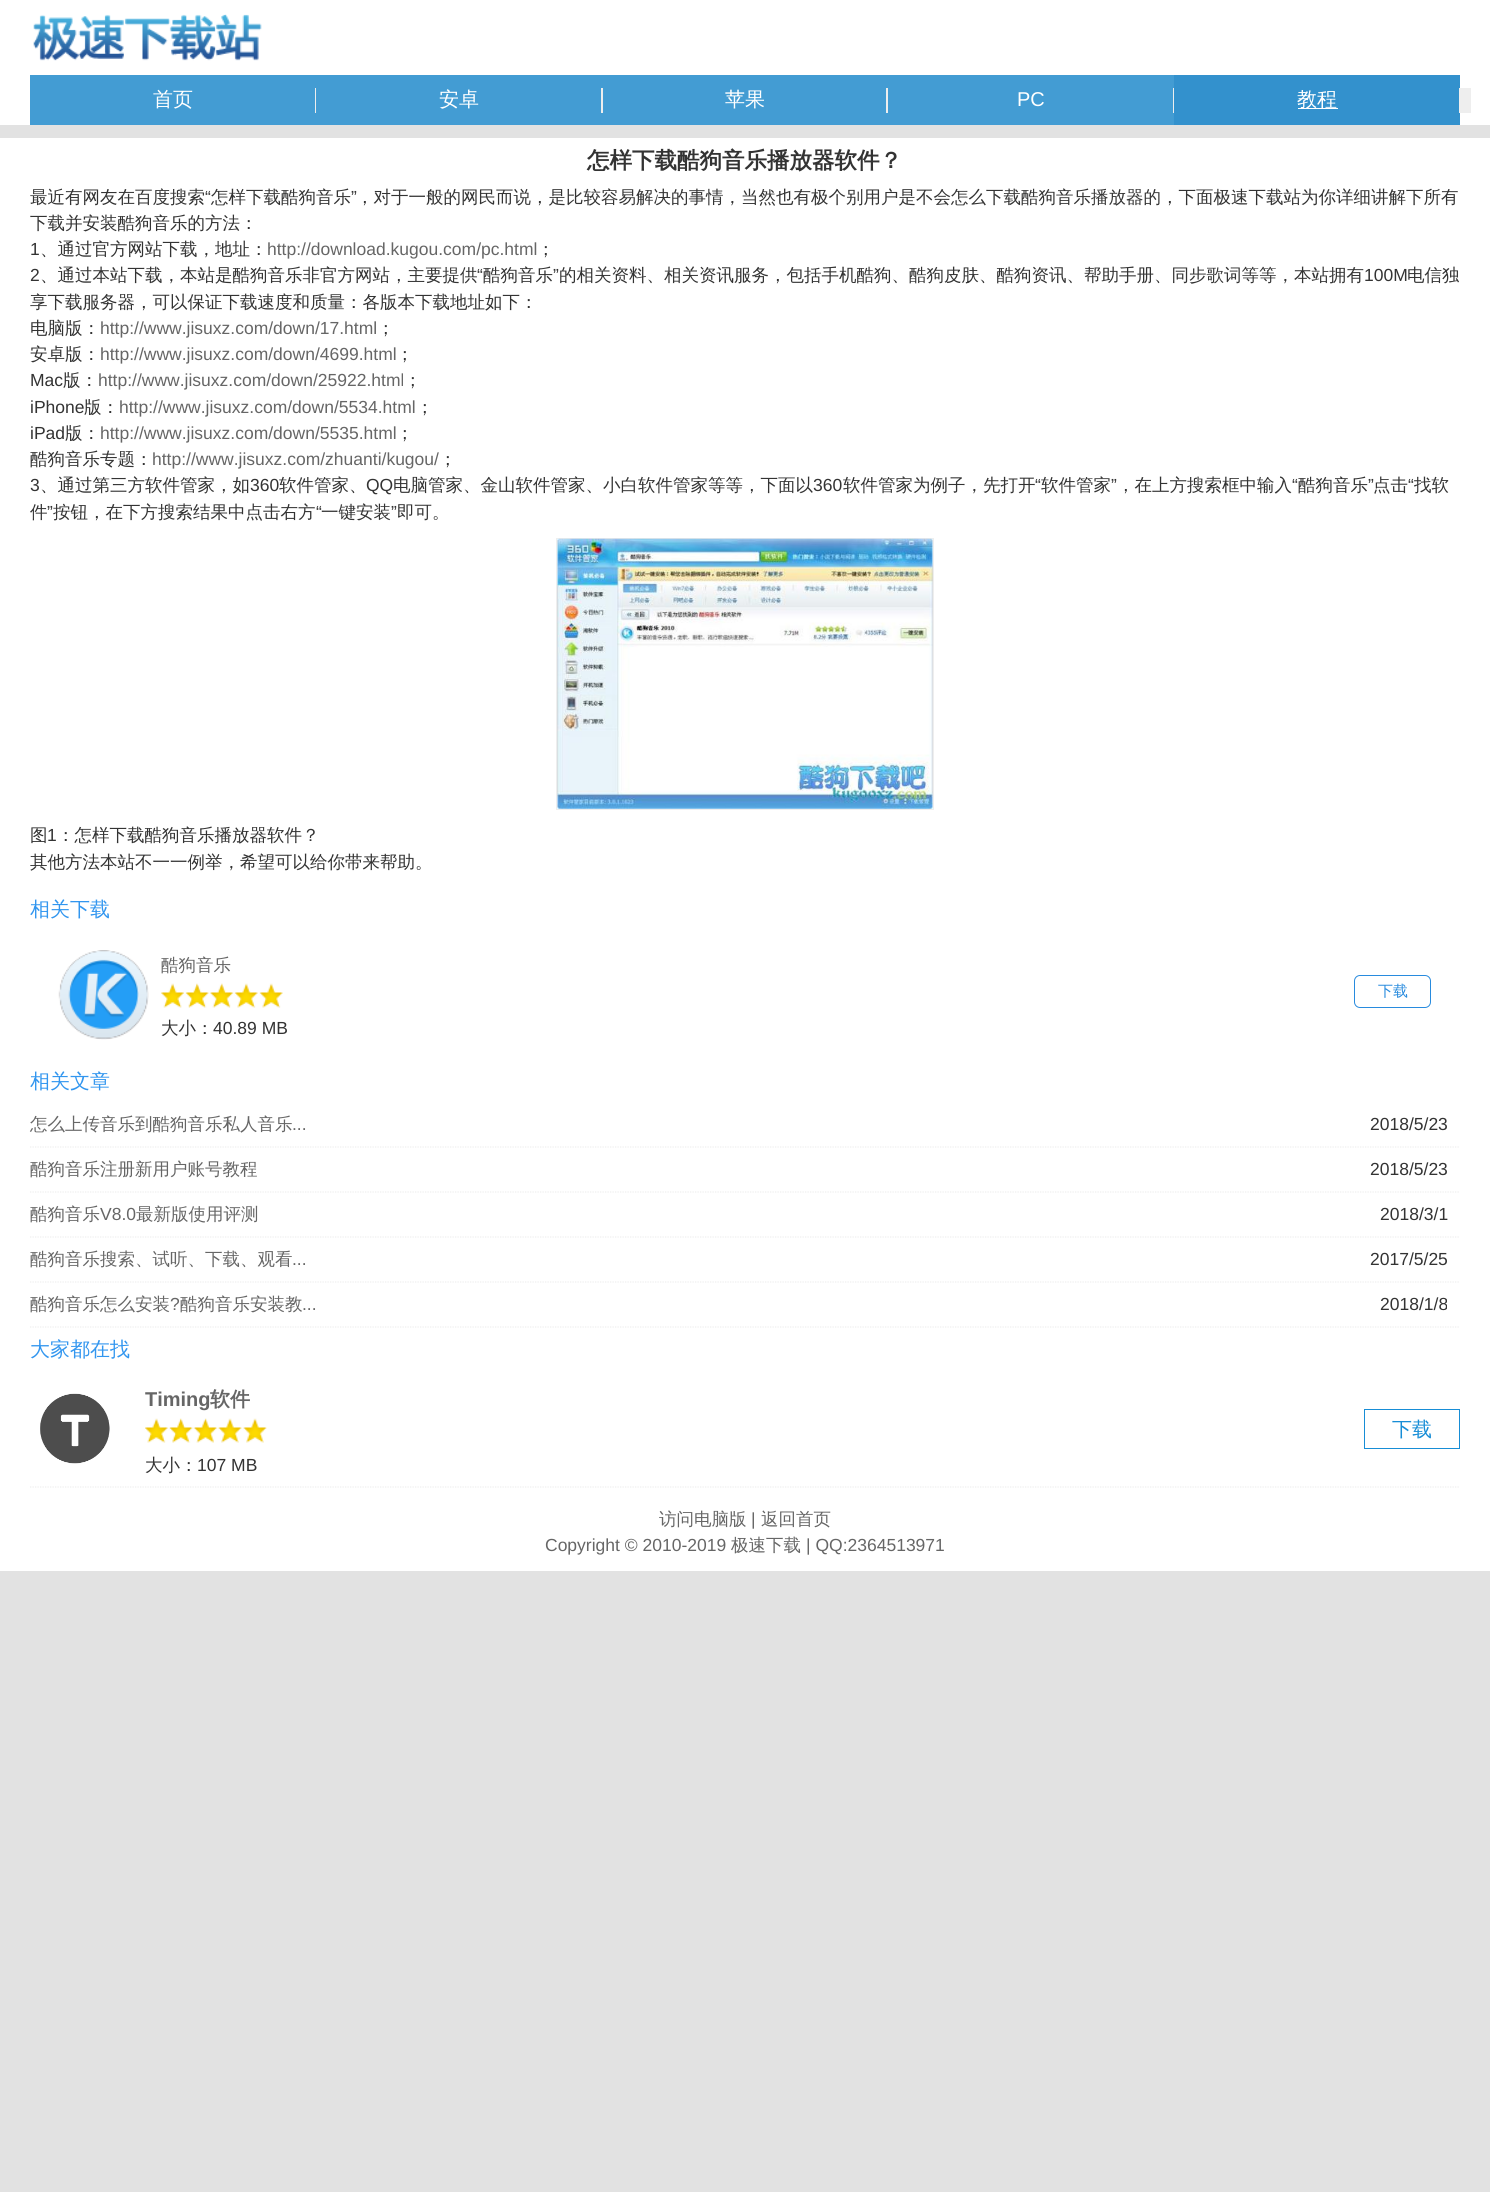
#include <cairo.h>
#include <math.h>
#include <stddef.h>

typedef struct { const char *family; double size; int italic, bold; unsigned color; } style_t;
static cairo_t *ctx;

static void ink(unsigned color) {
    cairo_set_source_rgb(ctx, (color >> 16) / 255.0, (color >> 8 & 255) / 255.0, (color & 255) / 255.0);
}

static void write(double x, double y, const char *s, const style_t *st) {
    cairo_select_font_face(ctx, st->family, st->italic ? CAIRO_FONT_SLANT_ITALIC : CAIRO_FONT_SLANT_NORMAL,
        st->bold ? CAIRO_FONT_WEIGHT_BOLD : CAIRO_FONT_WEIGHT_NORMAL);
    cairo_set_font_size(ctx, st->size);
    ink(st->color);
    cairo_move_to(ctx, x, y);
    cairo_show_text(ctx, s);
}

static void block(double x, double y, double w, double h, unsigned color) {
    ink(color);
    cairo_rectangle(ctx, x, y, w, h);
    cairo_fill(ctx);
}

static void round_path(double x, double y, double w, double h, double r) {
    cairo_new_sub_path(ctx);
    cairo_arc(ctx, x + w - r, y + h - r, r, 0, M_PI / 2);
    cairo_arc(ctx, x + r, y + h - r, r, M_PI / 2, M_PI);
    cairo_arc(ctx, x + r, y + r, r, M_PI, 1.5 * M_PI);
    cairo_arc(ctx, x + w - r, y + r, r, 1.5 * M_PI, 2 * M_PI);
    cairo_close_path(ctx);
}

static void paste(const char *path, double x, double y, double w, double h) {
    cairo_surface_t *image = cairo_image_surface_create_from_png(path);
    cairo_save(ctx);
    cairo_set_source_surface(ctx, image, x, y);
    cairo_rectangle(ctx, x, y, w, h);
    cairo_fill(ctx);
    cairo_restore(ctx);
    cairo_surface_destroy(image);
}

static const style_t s1 = {"WenQuanYi Zen Hei Medium", 20, 0, 0, 0xffffff};
static const style_t s2 = {"Liberation Sans", 20, 0, 0, 0xffffff};
static const style_t s3 = {"WenQuanYi Zen Hei", 22.5, 0, 1, 0x333333};
static const style_t s4 = {"WenQuanYi Zen Hei Medium", 17.5, 0, 0, 0x333333};
static const style_t s5 = {"Liberation Sans", 17.5, 0, 0, 0x333333};
static const style_t s6 = {"Liberation Sans", 17.5, 0, 0, 0x666666};
static const style_t s7 = {"WenQuanYi Zen Hei Medium", 20, 0, 0, 0x3296ef};
static const style_t s8 = {"WenQuanYi Zen Hei Medium", 17.5, 0, 0, 0x666666};
static const style_t s9 = {"WenQuanYi Zen Hei Medium", 15, 0, 0, 0x288bde};
static const style_t s10 = {"Liberation Sans", 20, 0, 1, 0x666666};
static const style_t s11 = {"WenQuanYi Zen Hei", 20, 0, 1, 0x666666};
static const style_t s12 = {"WenQuanYi Zen Hei Medium", 20, 0, 0, 0x178dd6};

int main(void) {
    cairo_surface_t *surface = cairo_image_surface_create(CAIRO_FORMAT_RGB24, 1490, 2192);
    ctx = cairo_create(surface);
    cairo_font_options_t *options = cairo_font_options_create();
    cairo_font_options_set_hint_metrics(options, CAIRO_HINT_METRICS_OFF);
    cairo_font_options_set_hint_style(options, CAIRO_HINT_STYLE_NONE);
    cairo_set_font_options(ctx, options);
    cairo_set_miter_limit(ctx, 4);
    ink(0xe2e2e2);
    cairo_paint(ctx);
    block(0, 0, 1490, 125, 0xffffff);
    paste("pic1.png", 33, 14, 229, 47);
    block(30, 75, 1144, 50, 0x439cd3);
    write(153, 106, "首页", &s1);
    block(315, 88, 1, 25, 0xeeeeee);
    write(439, 106, "安卓", &s1);
    block(601, 88, 2, 25, 0xeeeeee);
    write(725, 106, "苹果", &s1);
    block(886, 88, 2, 25, 0xeeeeee);
    write(1017, 106, "PC", &s2);
    block(1173, 88, 1, 25, 0xeeeeee);
    block(1174, 75, 286, 50, 0x3391cd);
    block(1298, 108, 40, 1, 0xffffff);
    write(1297, 106, "教程", &s1);
    block(1459, 88, 12, 25, 0xeeeeee);
    block(0, 138, 1490, 1433, 0xffffff);
    write(587, 168, "怎样下载酷狗音乐播放器软件？", &s3);
    write(30, 203, "最近有网友在百度搜索", &s4);
    write(205, 203, "“", &s5);
    write(211, 203, "怎样下载酷狗音乐", &s4);
    write(351, 203, "”", &s5);
    write(356, 203, "，对于一般的网民而说，是比较容易解决的事情，当然也有极个别用户是不会怎么下载酷狗音乐播放器的，下面极速下载站为你详细讲解下所有", &s4);
    write(30, 229, "下载并安装酷狗音乐的方法：", &s4);
    write(30, 255, "1", &s5);
    write(40, 255, "、通过官方网站下载，地址：", &s4);
    write(267, 255, "http://download.kugou.com/pc.html", &s6);
    write(537, 255, "；", &s4);
    write(30, 281, "2", &s5);
    write(40, 281, "、通过本站下载，本站是酷狗音乐非官方网站，主要提供", &s4);
    write(477, 281, "“", &s5);
    write(483, 281, "酷狗音乐", &s4);
    write(553, 281, "”", &s5);
    write(559, 281, "的相关资料、相关资讯服务，包括手机酷狗、酷狗皮肤、酷狗资讯、帮助手册、同步歌词等等，本站拥有", &s4);
    write(1364, 281, "100M", &s5);
    write(1407, 281, "电信独", &s4);
    write(30, 308, "享下载服务器，可以保证下载速度和质量：各版本下载地址如下：", &s4);
    write(30, 334, "电脑版：", &s4);
    write(100, 334, "http://www.jisuxz.com/down/17.html", &s6);
    write(377, 334, "；", &s4);
    write(30, 360, "安卓版：", &s4);
    write(100, 360, "http://www.jisuxz.com/down/4699.html", &s6);
    write(396, 360, "；", &s4);
    write(30, 386, "Mac", &s5);
    write(63, 386, "版：", &s4);
    write(98, 386, "http://www.jisuxz.com/down/25922.html", &s6);
    write(404, 386, "；", &s4);
    write(30, 413, "iPhone", &s5);
    write(84, 413, "版：", &s4);
    write(119, 413, "http://www.jisuxz.com/down/5534.html", &s6);
    write(416, 413, "；", &s4);
    write(30, 439, "iPad", &s5);
    write(65, 439, "版：", &s4);
    write(100, 439, "http://www.jisuxz.com/down/5535.html", &s6);
    write(396, 439, "；", &s4);
    write(30, 465, "酷狗音乐专题：", &s4);
    write(152, 465, "http://www.jisuxz.com/zhuanti/kugou/", &s6);
    write(439, 465, "；", &s4);
    write(30, 491, "3", &s5);
    write(40, 491, "、通过第三方软件管家，如", &s4);
    write(250, 491, "360", &s5);
    write(279, 491, "软件管家、", &s4);
    write(366, 491, "QQ", &s5);
    write(393, 491, "电脑管家、金山软件管家、小白软件管家等等，下面以", &s4);
    write(813, 491, "360", &s5);
    write(843, 491, "软件管家为例子，先打开", &s4);
    write(1035, 491, "“", &s5);
    write(1041, 491, "软件管家", &s4);
    write(1111, 491, "”", &s5);
    write(1117, 491, "，在上方搜索框中输入", &s4);
    write(1292, 491, "“", &s5);
    write(1298, 491, "酷狗音乐", &s4);
    write(1368, 491, "”", &s5);
    write(1373, 491, "点击", &s4);
    write(1408, 491, "“", &s5);
    write(1414, 491, "找软", &s4);
    write(30, 518, "件", &s4);
    write(47, 518, "”", &s5);
    write(53, 518, "按钮，在下方搜索结果中点击右方", &s4);
    write(316, 518, "“", &s5);
    write(321, 518, "一键安装", &s4);
    write(391, 518, "”", &s5);
    write(397, 518, "即可。", &s4);
    cairo_rectangle(ctx, 556.5, 538.5, 377, 271);
    ink(0xeeeeee);
    cairo_set_line_width(ctx, 1);
    cairo_stroke(ctx);
    paste("pic2.png", 557, 538, 376, 271);
    write(30, 841, "图", &s4);
    write(47, 841, "1", &s5);
    write(57, 841, "：怎样下载酷狗音乐播放器软件？", &s4);
    write(30, 868, "其他方法本站不一一例举，希望可以给你带来帮助。", &s4);
    write(30, 916, "相关下载", &s7);
    paste("pic3.png", 58, 950, 91, 90);
    write(161, 971, "酷狗音乐", &s8);
    paste("pic4.png", 161, 983, 122, 25);
    write(161, 1034, "大小：", &s4);
    write(213, 1034, "40.89 MB", &s5);
    round_path(1354.5, 975.5, 76, 32, 5.5);
    ink(0x288bde);
    cairo_stroke(ctx);
    write(1378, 996, "下载", &s9);
    write(30, 1088, "相关文章", &s7);
    cairo_new_path(ctx);
    cairo_move_to(ctx, 30, 1147);
    cairo_line_to(ctx, 1460, 1147);
    ink(0xeeeeee);
    cairo_set_line_width(ctx, 1.2);
    cairo_set_dash(ctx, (double[]){1.25, 1.25}, 2, 0);
    cairo_stroke(ctx);
    write(30, 1130, "怎么上传音乐到酷狗音乐私人音乐", &s8);
    write(292, 1130, "...", &s6);
    write(1370, 1130, "2018/5/23", &s5);
    cairo_new_path(ctx);
    cairo_move_to(ctx, 30, 1192);
    cairo_line_to(ctx, 1460, 1192);
    ink(0xeeeeee);
    cairo_stroke(ctx);
    write(30, 1175, "酷狗音乐注册新用户账号教程", &s8);
    write(1370, 1175, "2018/5/23", &s5);
    cairo_new_path(ctx);
    cairo_move_to(ctx, 30, 1237);
    cairo_line_to(ctx, 1460, 1237);
    ink(0xeeeeee);
    cairo_stroke(ctx);
    write(30, 1220, "酷狗音乐", &s8);
    write(100, 1220, "V8.0", &s6);
    write(136, 1220, "最新版使用评测", &s8);
    write(1380, 1220, "2018/3/1", &s5);
    cairo_new_path(ctx);
    cairo_move_to(ctx, 30, 1282);
    cairo_line_to(ctx, 1460, 1282);
    ink(0xeeeeee);
    cairo_stroke(ctx);
    write(30, 1265, "酷狗音乐搜索、试听、下载、观看", &s8);
    write(292, 1265, "...", &s6);
    write(1370, 1265, "2017/5/25", &s5);
    cairo_new_path(ctx);
    cairo_move_to(ctx, 30, 1327);
    cairo_line_to(ctx, 1460, 1327);
    ink(0xeeeeee);
    cairo_stroke(ctx);
    write(30, 1310, "酷狗音乐怎么安装", &s8);
    write(170, 1310, "?", &s6);
    write(180, 1310, "酷狗音乐安装教", &s8);
    write(302, 1310, "...", &s6);
    write(1380, 1310, "2018/1/8", &s5);
    write(30, 1356, "大家都在找", &s7);
    cairo_new_path(ctx);
    cairo_move_to(ctx, 30, 1487);
    cairo_line_to(ctx, 1460, 1487);
    ink(0xeeeeee);
    cairo_stroke(ctx);
    paste("pic5.png", 40, 1393, 70, 71);
    write(145, 1406, "Timing", &s10);
    write(210, 1406, "软件", &s11);
    paste("pic6.png", 145, 1418, 122, 25);
    write(145, 1471, "大小：", &s4);
    write(197, 1471, "107 MB", &s5);
    cairo_rectangle(ctx, 1364.5, 1409.5, 95, 39);
    ink(0x178dd6);
    cairo_set_line_width(ctx, 1);
    cairo_set_dash(ctx, NULL, 0, 0);
    cairo_stroke(ctx);
    write(1392, 1436, "下载", &s12);
    write(659, 1525, "访问电脑版", &s8);
    write(751, 1525, "|", &s6);
    write(761, 1525, "返回首页", &s8);
    write(545, 1551, "Copyright © 2010-2019", &s6);
    write(731, 1551, "极速下载", &s8);
    write(806, 1551, "| QQ:2364513971", &s6);
    cairo_surface_write_to_png(surface, "screenshot.png");
    cairo_font_options_destroy(options);
    cairo_destroy(ctx);
    cairo_surface_destroy(surface);
    return 0;
}
